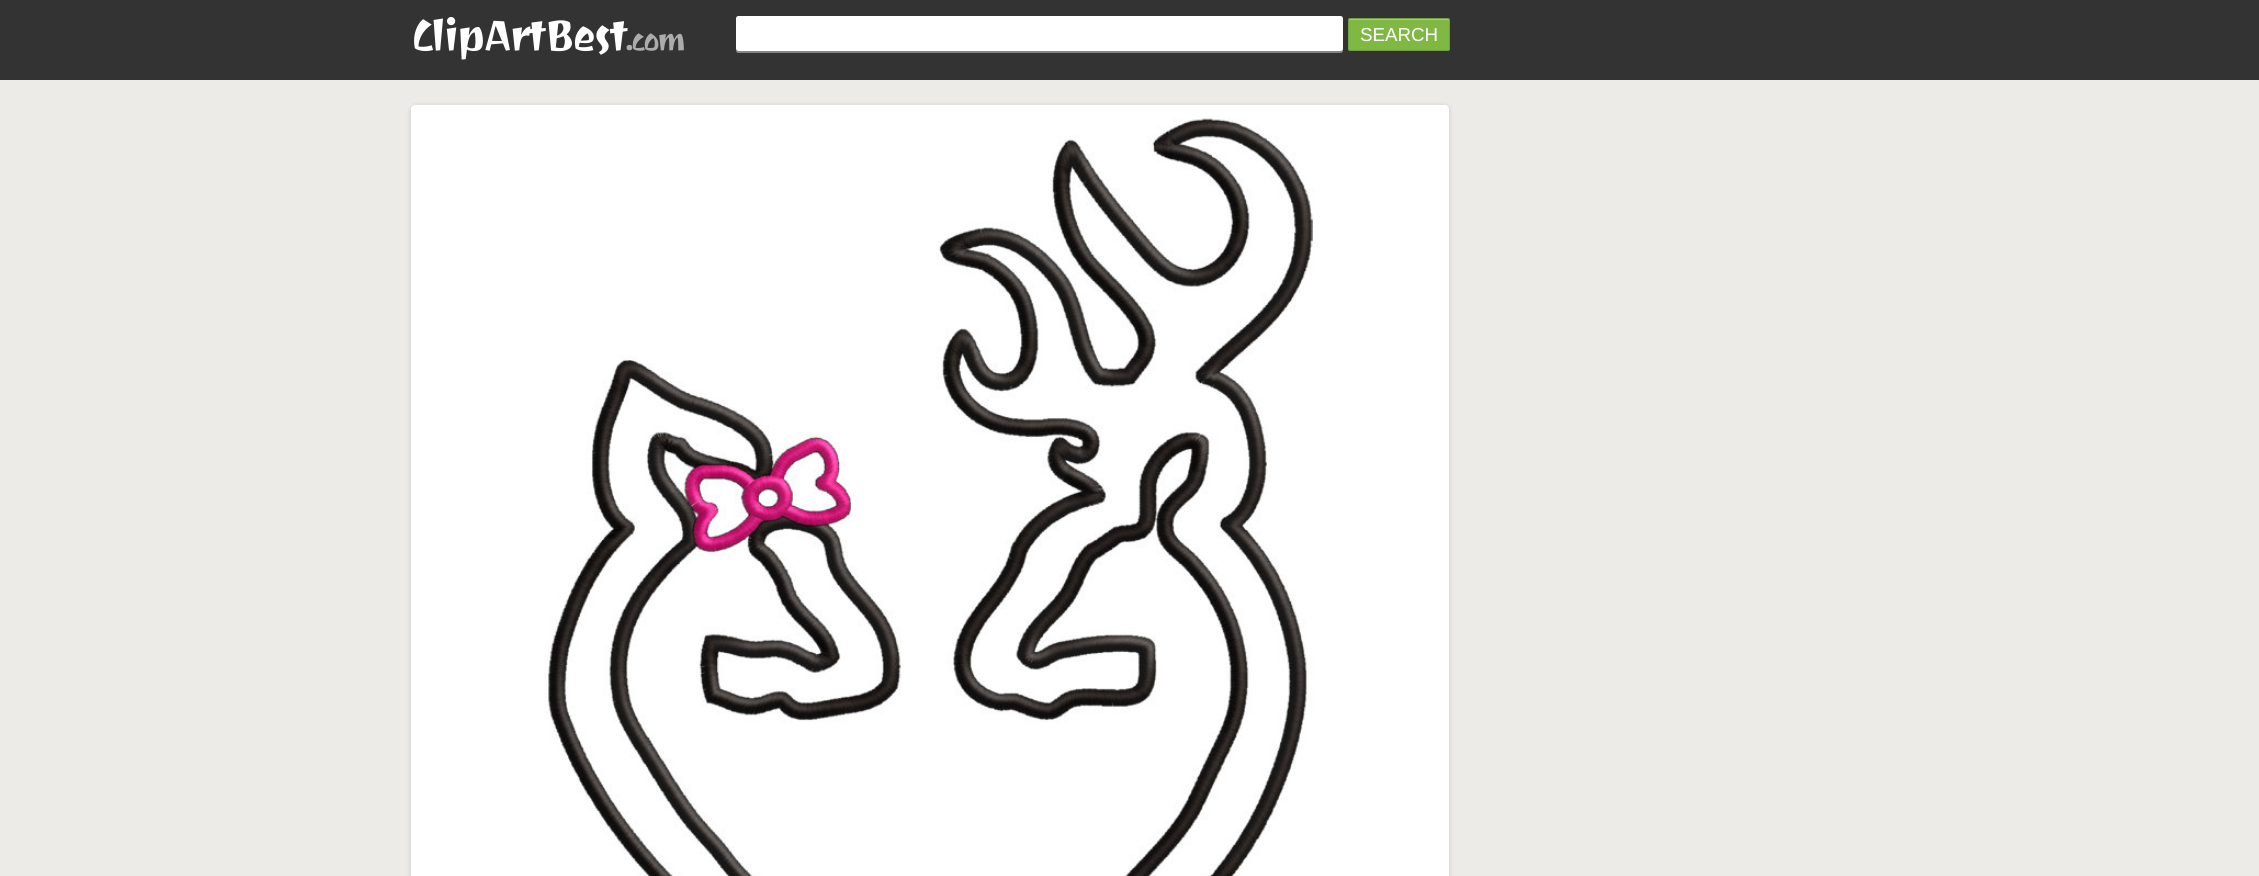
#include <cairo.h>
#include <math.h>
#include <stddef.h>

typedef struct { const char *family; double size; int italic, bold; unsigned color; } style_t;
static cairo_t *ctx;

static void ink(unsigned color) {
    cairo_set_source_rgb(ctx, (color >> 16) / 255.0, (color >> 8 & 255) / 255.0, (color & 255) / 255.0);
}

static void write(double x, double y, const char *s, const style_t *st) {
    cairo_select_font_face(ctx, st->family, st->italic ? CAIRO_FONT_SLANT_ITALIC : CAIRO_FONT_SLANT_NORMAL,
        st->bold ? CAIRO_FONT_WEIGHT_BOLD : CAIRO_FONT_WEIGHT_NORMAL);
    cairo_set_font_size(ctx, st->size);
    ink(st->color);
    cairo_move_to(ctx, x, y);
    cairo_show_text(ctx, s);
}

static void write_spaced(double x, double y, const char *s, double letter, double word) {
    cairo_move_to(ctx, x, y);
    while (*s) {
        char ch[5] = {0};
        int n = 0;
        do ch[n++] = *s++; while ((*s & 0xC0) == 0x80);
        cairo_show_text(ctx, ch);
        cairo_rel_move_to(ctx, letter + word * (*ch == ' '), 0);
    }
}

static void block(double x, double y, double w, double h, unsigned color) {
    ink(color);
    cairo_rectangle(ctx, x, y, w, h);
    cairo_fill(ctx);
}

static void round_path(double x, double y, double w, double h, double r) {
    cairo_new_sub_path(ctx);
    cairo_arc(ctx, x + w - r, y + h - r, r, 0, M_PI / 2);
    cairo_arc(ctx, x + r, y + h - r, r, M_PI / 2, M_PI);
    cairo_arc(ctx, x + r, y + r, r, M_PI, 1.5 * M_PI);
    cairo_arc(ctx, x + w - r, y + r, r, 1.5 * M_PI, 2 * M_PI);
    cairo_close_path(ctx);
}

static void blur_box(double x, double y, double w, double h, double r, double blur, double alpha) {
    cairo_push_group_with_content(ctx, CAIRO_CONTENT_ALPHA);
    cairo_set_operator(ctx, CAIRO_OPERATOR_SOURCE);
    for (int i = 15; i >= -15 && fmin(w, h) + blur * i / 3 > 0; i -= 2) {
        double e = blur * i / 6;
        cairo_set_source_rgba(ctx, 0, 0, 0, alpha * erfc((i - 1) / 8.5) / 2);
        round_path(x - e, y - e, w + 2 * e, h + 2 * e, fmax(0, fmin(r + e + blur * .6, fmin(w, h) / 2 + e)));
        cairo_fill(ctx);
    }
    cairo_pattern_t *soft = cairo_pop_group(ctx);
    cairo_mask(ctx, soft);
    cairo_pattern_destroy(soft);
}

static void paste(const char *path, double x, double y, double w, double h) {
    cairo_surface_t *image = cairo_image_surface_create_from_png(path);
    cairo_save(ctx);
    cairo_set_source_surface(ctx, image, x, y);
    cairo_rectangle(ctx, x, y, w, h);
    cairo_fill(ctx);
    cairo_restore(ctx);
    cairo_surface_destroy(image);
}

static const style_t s1 = {"Liberation Sans", 18.75, 0, 0, 0xffffff};

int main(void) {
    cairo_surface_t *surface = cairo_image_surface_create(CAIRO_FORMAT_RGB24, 2259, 876);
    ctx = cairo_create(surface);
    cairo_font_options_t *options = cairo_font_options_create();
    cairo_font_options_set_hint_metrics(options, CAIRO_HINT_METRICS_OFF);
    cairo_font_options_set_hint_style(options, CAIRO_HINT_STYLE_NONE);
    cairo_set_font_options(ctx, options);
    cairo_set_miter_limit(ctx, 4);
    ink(0xecebe8);
    cairo_paint(ctx);
    block(0, 0, 2259, 80, 0x333333);
    cairo_select_font_face(ctx, "Joti One", CAIRO_FONT_SLANT_NORMAL, CAIRO_FONT_WEIGHT_NORMAL);
    cairo_set_font_size(ctx, 44);
    ink(0xffffff);
    write_spaced(411, 50, "ClipArtBest", -2.5, 0);
    cairo_set_font_size(ctx, 31);
    ink(0xacacac);
    write_spaced(625, 50, ".com", -2.5, 0);
    ink(0x858585);
    cairo_new_path(ctx);
    cairo_move_to(ctx, 736, 19);
    cairo_line_to(ctx, 736, 50);
    cairo_curve_to(ctx, 736, 52, 737, 53, 738, 53);
    cairo_line_to(ctx, 1340, 53);
    cairo_curve_to(ctx, 1342, 53, 1343, 52, 1343, 50);
    cairo_line_to(ctx, 1343, 20);
    cairo_line_to(ctx, 1342, 19);
    cairo_line_to(ctx, 1342, 49);
    cairo_curve_to(ctx, 1342, 50, 1341, 51, 1340, 51);
    cairo_line_to(ctx, 739, 51);
    cairo_curve_to(ctx, 737, 51, 736, 50, 736, 49);
    cairo_close_path(ctx);
    cairo_fill(ctx);
    ink(0xffffff);
    round_path(736, 16, 607, 35, 2.5);
    cairo_fill(ctx);
    ink(0x80b844);
    round_path(1348, 18, 102, 33, 2.5);
    cairo_fill(ctx);
    ink(0xa6cd7c);
    cairo_new_path(ctx);
    cairo_move_to(ctx, 1350, 20);
    cairo_line_to(ctx, 1448, 20);
    cairo_line_to(ctx, 1449, 21);
    cairo_curve_to(ctx, 1449, 20, 1449, 19, 1448, 19);
    cairo_line_to(ctx, 1350, 19);
    cairo_curve_to(ctx, 1349, 19, 1349, 20, 1349, 21);
    cairo_close_path(ctx);
    cairo_fill(ctx);
    round_path(1348.5, 18.5, 101, 32, 2);
    ink(0x729f44);
    cairo_set_line_width(ctx, 1);
    cairo_stroke(ctx);
    write(1360, 41, "SEARCH", &s1);
    ink(0x000000);
    blur_box(411, 106, 1038, 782, 4, 2.5, 0.15);
    ink(0xffffff);
    round_path(411, 105, 1038, 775, 4);
    cairo_fill(ctx);
    paste("pic1.png", 545, 118, 769, 758);
    cairo_surface_write_to_png(surface, "screenshot.png");
    cairo_font_options_destroy(options);
    cairo_destroy(ctx);
    cairo_surface_destroy(surface);
    return 0;
}
